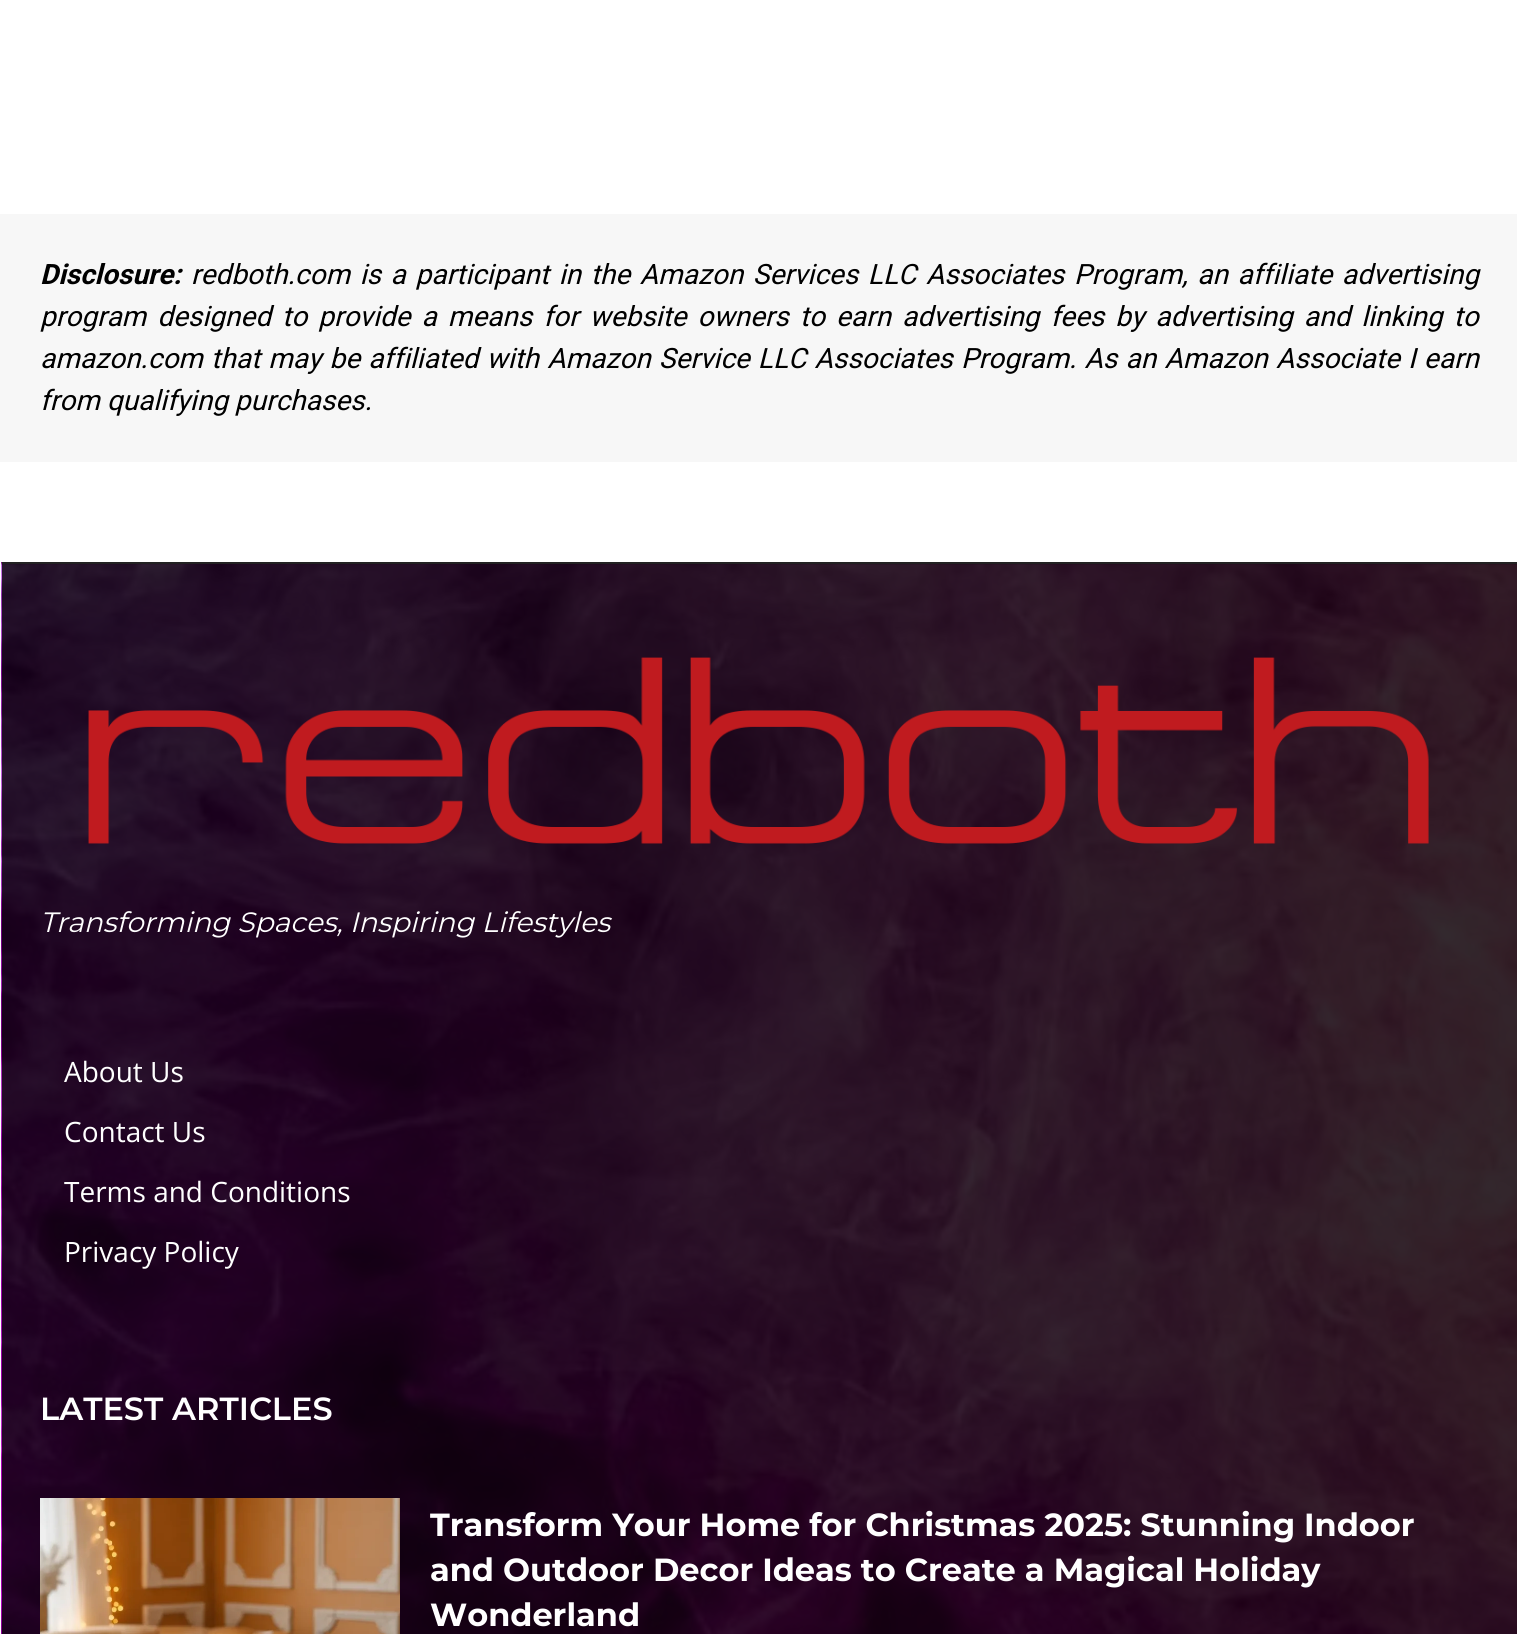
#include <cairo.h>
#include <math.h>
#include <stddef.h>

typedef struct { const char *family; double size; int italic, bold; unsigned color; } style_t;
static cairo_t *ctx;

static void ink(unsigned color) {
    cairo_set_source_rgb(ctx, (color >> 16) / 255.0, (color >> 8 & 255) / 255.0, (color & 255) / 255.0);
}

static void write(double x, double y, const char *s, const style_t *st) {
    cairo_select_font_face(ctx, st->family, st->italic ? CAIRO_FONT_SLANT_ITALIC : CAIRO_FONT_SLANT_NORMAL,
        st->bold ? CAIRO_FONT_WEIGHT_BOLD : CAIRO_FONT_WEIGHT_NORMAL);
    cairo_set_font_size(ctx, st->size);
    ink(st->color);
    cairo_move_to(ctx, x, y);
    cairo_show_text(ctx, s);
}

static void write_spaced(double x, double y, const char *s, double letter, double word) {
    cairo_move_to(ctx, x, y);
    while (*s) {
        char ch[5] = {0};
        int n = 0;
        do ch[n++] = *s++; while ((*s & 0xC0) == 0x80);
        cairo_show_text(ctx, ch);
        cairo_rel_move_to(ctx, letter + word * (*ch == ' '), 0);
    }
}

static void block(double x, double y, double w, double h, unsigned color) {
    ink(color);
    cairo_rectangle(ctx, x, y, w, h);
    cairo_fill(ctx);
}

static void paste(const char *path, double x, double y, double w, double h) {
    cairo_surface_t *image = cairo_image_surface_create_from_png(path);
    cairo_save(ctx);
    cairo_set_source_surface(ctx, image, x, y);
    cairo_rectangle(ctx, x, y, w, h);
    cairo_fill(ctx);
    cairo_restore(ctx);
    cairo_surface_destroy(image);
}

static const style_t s1 = {"Roboto", 28, 1, 1, 0x000000};
static const style_t s2 = {"Roboto", 28, 1, 0, 0x000000};
static const style_t s3 = {"Montserrat", 28, 1, 0, 0xffffff};
static const style_t s4 = {"Open Sans", 28, 0, 0, 0xffffff};
static const style_t s5 = {"Montserrat SemiBold", 32, 0, 0, 0xffffff};
static const style_t s6 = {"Montserrat", 32, 0, 1, 0xffffff};

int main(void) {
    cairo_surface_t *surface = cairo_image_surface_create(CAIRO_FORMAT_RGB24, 1517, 1634);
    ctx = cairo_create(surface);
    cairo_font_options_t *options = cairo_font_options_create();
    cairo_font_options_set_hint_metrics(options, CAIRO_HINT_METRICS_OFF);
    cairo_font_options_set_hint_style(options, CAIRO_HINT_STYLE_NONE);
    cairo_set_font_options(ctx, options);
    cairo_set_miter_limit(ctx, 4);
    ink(0xffffff);
    cairo_paint(ctx);
    block(0, 214, 1517, 248, 0xf7f7f7);
    write(40, 284, "Disclosure:", &s1);
    cairo_select_font_face(ctx, "Roboto", CAIRO_FONT_SLANT_ITALIC, CAIRO_FONT_WEIGHT_NORMAL);
    write_spaced(191, 284, "redboth.com is a participant in the Amazon Services LLC Associates Program, an affiliate advertising", 0, 2.75);
    write_spaced(40, 326, "program designed to provide a means for website owners to earn advertising fees by advertising and linking to", 0, 4.1);
    write_spaced(40, 368, "amazon.com that may be affiliated with Amazon Service LLC Associates Program. As an Amazon Associate I earn", 0, 1.25);
    write(40, 410, "from qualifying purchases.", &s2);
    paste("pic1.png", 1, 562, 1516, 1072);
    block(2, 562, 1515, 2, 0x222222);
    paste("pic2.png", 88, 657, 1341, 187);
    write(40, 932, "Transforming Spaces, Inspiring Lifestyles", &s3);
    write(64, 1082, "About Us", &s4);
    write(64, 1142, "Contact Us", &s4);
    write(64, 1202, "Terms and Conditions", &s4);
    write(64, 1262, "Privacy Policy", &s4);
    write(40, 1420, "LATEST ARTICLES", &s5);
    paste("pic3.png", 40, 1498, 360, 136);
    write(430, 1536, "Transform Your Home for Christmas 2025: Stunning Indoor", &s6);
    write(430, 1581, "and Outdoor Decor Ideas to Create a Magical Holiday", &s6);
    write(430, 1626, "Wonderland", &s6);
    cairo_surface_write_to_png(surface, "screenshot.png");
    cairo_font_options_destroy(options);
    cairo_destroy(ctx);
    cairo_surface_destroy(surface);
    return 0;
}
